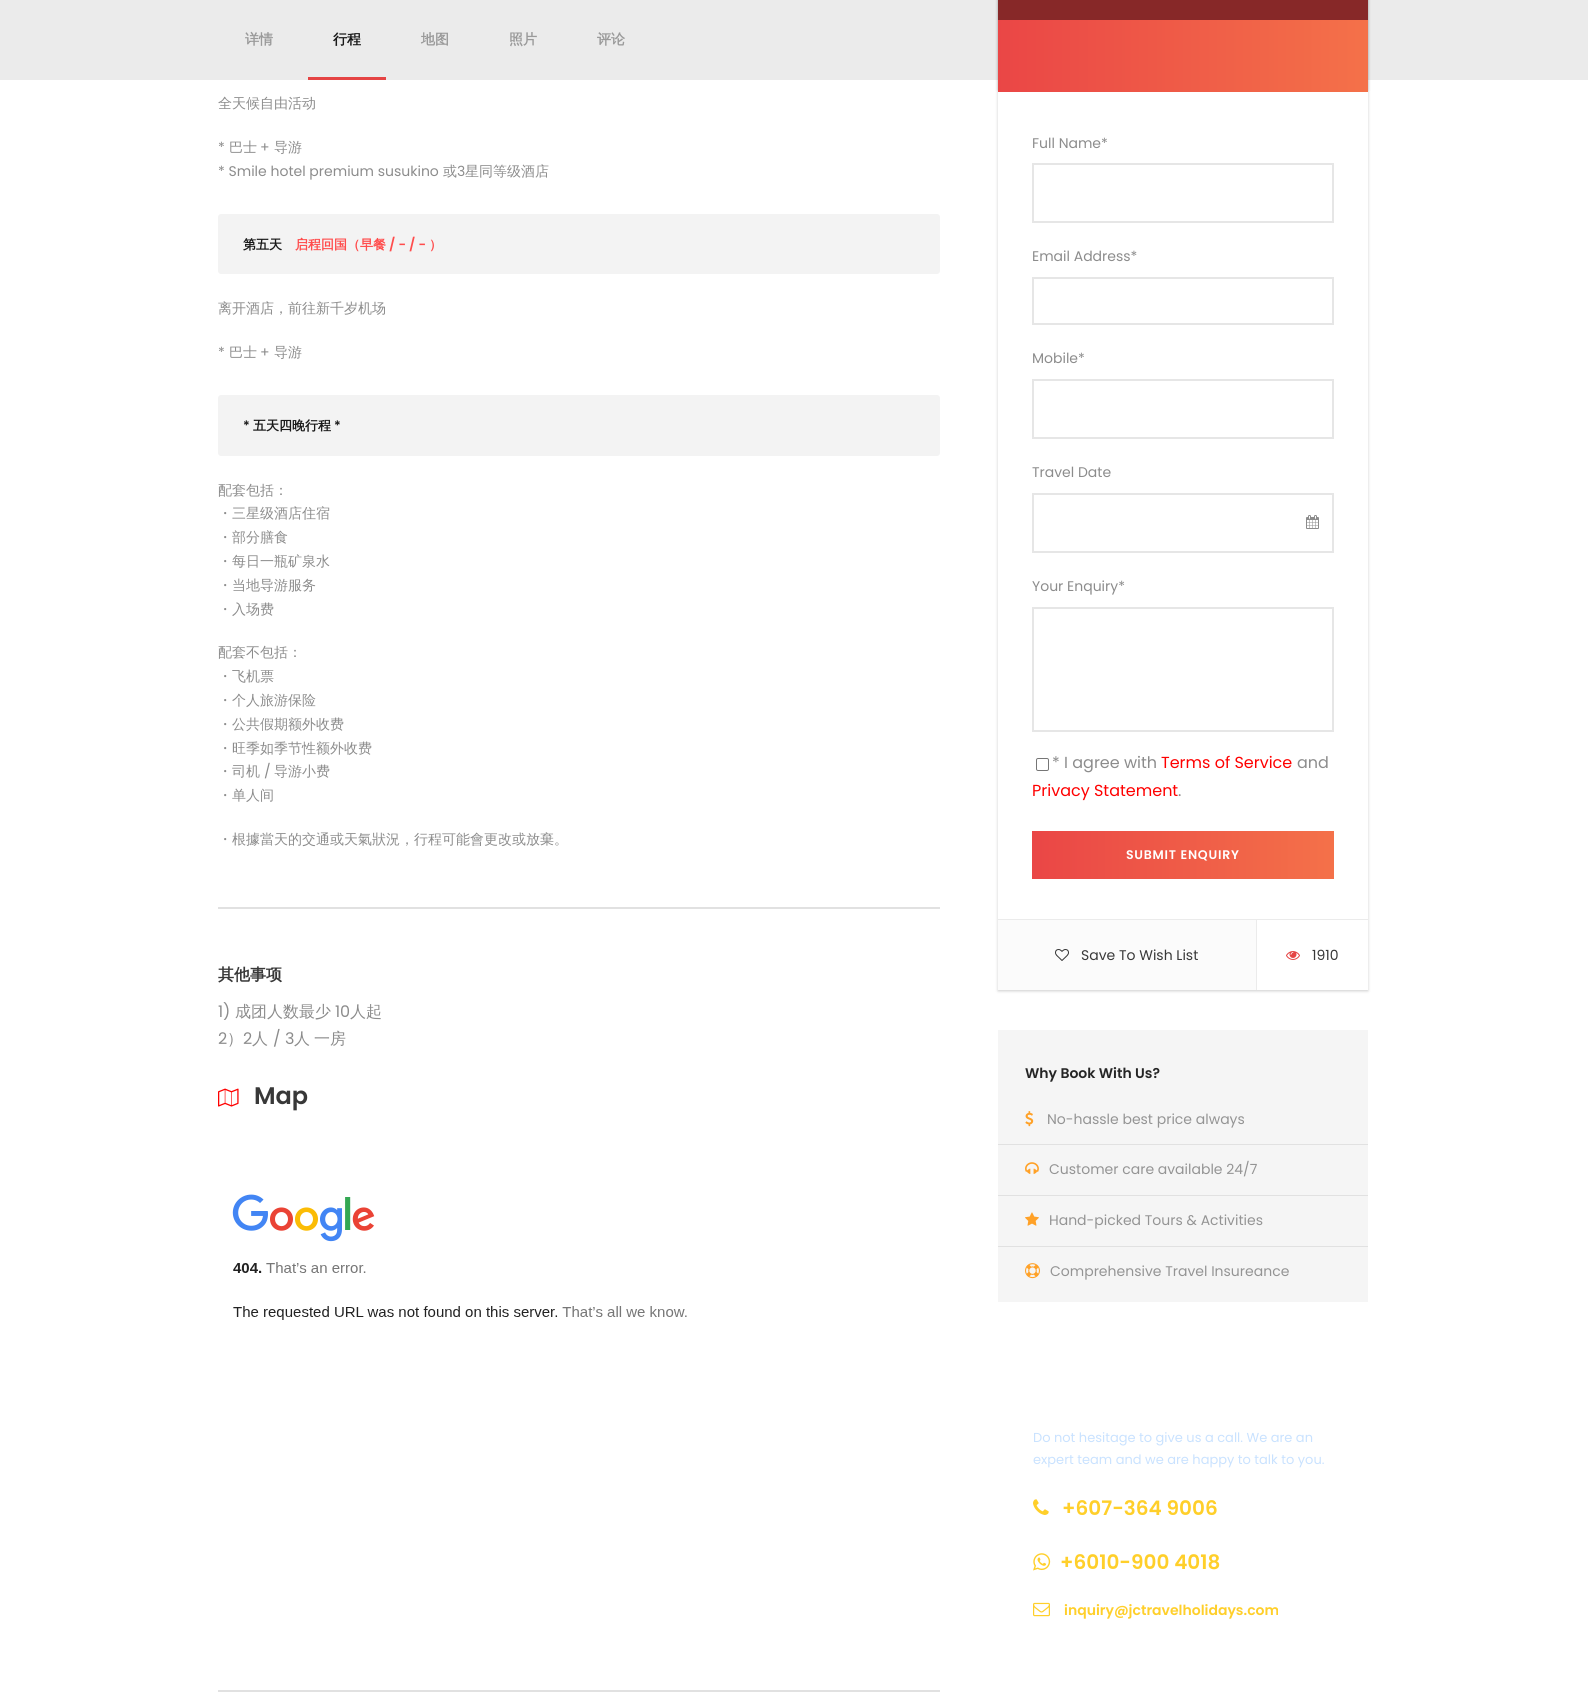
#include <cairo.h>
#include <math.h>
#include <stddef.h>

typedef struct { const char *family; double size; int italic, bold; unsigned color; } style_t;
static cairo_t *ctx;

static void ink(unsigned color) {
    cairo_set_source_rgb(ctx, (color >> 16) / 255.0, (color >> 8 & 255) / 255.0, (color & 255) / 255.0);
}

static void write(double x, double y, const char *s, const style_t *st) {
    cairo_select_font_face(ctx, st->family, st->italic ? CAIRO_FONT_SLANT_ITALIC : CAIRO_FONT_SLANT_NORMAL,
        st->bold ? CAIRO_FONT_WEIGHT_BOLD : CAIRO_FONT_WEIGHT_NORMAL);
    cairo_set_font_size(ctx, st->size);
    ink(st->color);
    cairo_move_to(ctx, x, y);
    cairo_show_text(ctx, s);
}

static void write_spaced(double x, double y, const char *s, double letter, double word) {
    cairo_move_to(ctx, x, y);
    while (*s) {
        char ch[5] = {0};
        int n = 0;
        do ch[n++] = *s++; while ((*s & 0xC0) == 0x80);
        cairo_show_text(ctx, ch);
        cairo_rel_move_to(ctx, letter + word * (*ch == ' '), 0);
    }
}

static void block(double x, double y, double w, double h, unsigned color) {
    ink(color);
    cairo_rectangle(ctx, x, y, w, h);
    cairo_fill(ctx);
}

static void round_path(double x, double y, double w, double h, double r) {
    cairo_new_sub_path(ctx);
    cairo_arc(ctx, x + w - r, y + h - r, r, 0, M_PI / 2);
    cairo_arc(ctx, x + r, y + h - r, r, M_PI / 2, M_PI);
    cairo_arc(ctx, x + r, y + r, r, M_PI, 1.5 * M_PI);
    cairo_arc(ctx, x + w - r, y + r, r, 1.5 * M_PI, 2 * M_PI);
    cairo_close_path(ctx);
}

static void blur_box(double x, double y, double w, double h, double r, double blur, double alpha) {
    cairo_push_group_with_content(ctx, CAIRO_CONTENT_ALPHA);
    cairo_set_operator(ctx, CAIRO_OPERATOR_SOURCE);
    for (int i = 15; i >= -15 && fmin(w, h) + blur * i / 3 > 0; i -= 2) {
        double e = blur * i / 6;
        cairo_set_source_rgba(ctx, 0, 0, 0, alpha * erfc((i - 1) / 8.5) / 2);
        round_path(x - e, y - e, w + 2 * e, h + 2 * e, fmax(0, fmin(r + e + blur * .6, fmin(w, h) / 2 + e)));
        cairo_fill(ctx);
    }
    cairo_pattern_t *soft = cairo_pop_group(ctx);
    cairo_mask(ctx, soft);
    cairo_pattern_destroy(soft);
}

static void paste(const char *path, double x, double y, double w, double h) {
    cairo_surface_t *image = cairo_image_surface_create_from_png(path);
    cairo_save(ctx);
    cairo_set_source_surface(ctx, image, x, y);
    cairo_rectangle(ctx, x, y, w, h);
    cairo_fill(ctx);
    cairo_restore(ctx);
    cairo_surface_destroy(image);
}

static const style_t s1 = {"WenQuanYi Zen Hei", 14, 0, 1, 0x9a9a9a};
static const style_t s2 = {"WenQuanYi Zen Hei", 14, 0, 1, 0x191919};
static const style_t s3 = {"WenQuanYi Zen Hei Medium", 14, 0, 0, 0x8c8c8c};
static const style_t s4 = {"Poppins", 14, 0, 0, 0x8c8c8c};
static const style_t s5 = {"WenQuanYi Zen Hei", 13, 0, 1, 0x191919};
static const style_t s6 = {"WenQuanYi Zen Hei", 13, 0, 1, 0xff4c4c};
static const style_t s7 = {"Poppins SemiBold", 13, 0, 0, 0xff4c4c};
static const style_t s8 = {"Poppins SemiBold", 13, 0, 0, 0x191919};
static const style_t s9 = {"WenQuanYi Zen Hei", 16, 0, 1, 0x383838};
static const style_t s10 = {"Poppins", 16, 0, 0, 0x8c8c8c};
static const style_t s11 = {"WenQuanYi Zen Hei Medium", 16, 0, 0, 0x8c8c8c};
static const style_t s12 = {"Poppins SemiBold", 24, 0, 0, 0x383838};
static const style_t s13 = {"Poppins", 16, 0, 0, 0xff0000};
static const style_t s14 = {"Poppins", 14, 0, 0, 0x383838};
static const style_t s15 = {"Poppins SemiBold", 14, 0, 0, 0x252525};
static const style_t s16 = {"Poppins", 14, 0, 0, 0x949494};
static const style_t s17 = {"Poppins", 13, 0, 0, 0xc9e2ff};
static const style_t s18 = {"Poppins SemiBold", 20, 0, 0, 0xffcf2a};
static const style_t s19 = {"Poppins SemiBold", 14, 0, 0, 0xffcf2a};

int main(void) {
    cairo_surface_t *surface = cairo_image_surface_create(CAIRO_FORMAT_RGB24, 1588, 1703);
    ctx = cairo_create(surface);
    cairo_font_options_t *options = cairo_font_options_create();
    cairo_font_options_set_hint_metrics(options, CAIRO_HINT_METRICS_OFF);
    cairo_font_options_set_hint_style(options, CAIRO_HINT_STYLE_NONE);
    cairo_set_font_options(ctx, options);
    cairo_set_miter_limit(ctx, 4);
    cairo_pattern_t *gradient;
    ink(0xffffff);
    cairo_paint(ctx);
    block(0, 0, 1588, 80, 0xebebeb);
    write(245, 44, "详情", &s1);
    write(333, 44, "行程", &s2);
    write(421, 44, "地图", &s1);
    write(509, 44, "照片", &s1);
    write(597, 44, "评论", &s1);
    block(308, 77, 78, 3, 0xe54444);
    write(218, 108, "全天候自由活动", &s3);
    write(218, 152, "*", &s4);
    write(229, 152, "巴士", &s3);
    write(260, 152, "+", &s4);
    write(274, 152, "导游", &s3);
    write(218, 176, "* Smile hotel premium susukino", &s4);
    write(443, 176, "或", &s3);
    write(457, 176, "3", &s4);
    write(465, 176, "星同等级酒店", &s3);
    ink(0xf3f3f3);
    round_path(218, 214, 722, 60, 3);
    cairo_fill(ctx);
    write(243, 249, "第五天", &s5);
    write(295, 249, "启程回国（早餐", &s6);
    write(389, 249, "/ - / -", &s7);
    write(429, 249, "）", &s6);
    write(218, 313, "离开酒店，前往新千岁机场", &s3);
    write(218, 357, "*", &s4);
    write(229, 357, "巴士", &s3);
    write(260, 357, "+", &s4);
    write(274, 357, "导游", &s3);
    ink(0xf3f3f3);
    round_path(218, 395, 722, 61, 3);
    cairo_fill(ctx);
    write(243, 430, "*", &s8);
    write(253, 430, "五天四晚行程", &s5);
    write(334, 430, "*", &s8);
    write(218, 495, "配套包括：", &s3);
    write(218, 518, "・三星级酒店住宿", &s3);
    write(218, 542, "・部分膳食", &s3);
    write(218, 566, "・每日一瓶矿泉水", &s3);
    write(218, 590, "・当地导游服务", &s3);
    write(218, 614, "・入场费", &s3);
    write(218, 657, "配套不包括：", &s3);
    write(218, 681, "・飞机票", &s3);
    write(218, 705, "・个人旅游保险", &s3);
    write(218, 729, "・公共假期额外收费", &s3);
    write(218, 753, "・旺季如季节性额外收费", &s3);
    write(218, 776, "・司机", &s3);
    write(264, 776, "/", &s4);
    write(274, 776, "导游小费", &s3);
    write(218, 800, "・单人间", &s3);
    write(218, 844, "・根據當天的交通或天氣狀況，行程可能會更改或放棄。", &s3);
    block(218, 907, 722, 2, 0xe1e1e1);
    write(218, 980, "其他事项", &s9);
    write(218, 1017, "1)", &s10);
    write(235, 1017, "成团人数最少", &s11);
    write(335, 1017, "10", &s10);
    write(350, 1017, "人起", &s11);
    write(218, 1044, "2", &s10);
    write(227, 1044, "）", &s11);
    write(243, 1044, "2", &s10);
    write(252, 1044, "人", &s11);
    write(273, 1044, "/ 3", &s10);
    write(294, 1044, "人", &s11);
    write(314, 1044, "一房", &s11);
    paste("pic1.png", 218, 1088, 21, 19);
    write(254, 1104, "Map", &s12);
    paste("pic2.png", 232, 1194, 455, 126);
    block(218, 1690, 722, 2, 0xe1e1e1);
    ink(0x000000);
    blur_box(998, -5, 370, 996, 0, 1.5, 0.2);
    blur_box(998, -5, 370, 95, 0, 1.5, 0.2);
    block(998, 0, 370, 20, 0x872828);
    gradient = cairo_pattern_create_linear(998, 56, 1368, 56);
    cairo_pattern_add_color_stop_rgba(gradient, 0, 0.918, 0.275, 0.275, 1);
    cairo_pattern_add_color_stop_rgba(gradient, 1, 0.957, 0.443, 0.286, 1);
    cairo_set_source(ctx, gradient);
    cairo_pattern_destroy(gradient);
    cairo_rectangle(ctx, 998, 20, 370, 72);
    cairo_fill(ctx);
    block(998, 92, 370, 898, 0xffffff);
    write(1032, 148, "Full Name*", &s4);
    cairo_rectangle(ctx, 1033, 164, 300, 58);
    ink(0xe6e6e6);
    cairo_stroke(ctx);
    write(1032, 261, "Email Address*", &s4);
    cairo_rectangle(ctx, 1033, 278, 300, 46);
    ink(0xe6e6e6);
    cairo_stroke(ctx);
    write(1032, 363, "Mobile*", &s4);
    cairo_rectangle(ctx, 1033, 380, 300, 58);
    ink(0xe6e6e6);
    cairo_stroke(ctx);
    write(1032, 477, "Travel Date", &s4);
    cairo_rectangle(ctx, 1033, 494, 300, 58);
    ink(0xe6e6e6);
    cairo_stroke(ctx);
    paste("pic3.png", 1306, 515, 13, 14);
    write(1032, 591, "Your Enquiry*", &s4);
    cairo_rectangle(ctx, 1033, 608, 300, 123);
    ink(0xe6e6e6);
    cairo_stroke(ctx);
    round_path(1036.5, 758.5, 12, 12, 1.5);
    ink(0x767676);
    cairo_set_line_width(ctx, 1);
    cairo_stroke(ctx);
    write(1052, 768, "* I agree with", &s10);
    write(1161, 768, "Terms of Service", &s13);
    write(1297, 768, "and", &s10);
    write(1032, 796, "Privacy Statement", &s13);
    write(1178, 796, ".", &s10);
    gradient = cairo_pattern_create_linear(1032, 855, 1334, 855);
    cairo_pattern_add_color_stop_rgba(gradient, 0, 0.918, 0.275, 0.275, 1);
    cairo_pattern_add_color_stop_rgba(gradient, 1, 0.957, 0.443, 0.286, 1);
    cairo_set_source(ctx, gradient);
    cairo_pattern_destroy(gradient);
    cairo_rectangle(ctx, 1032, 831, 302, 48);
    cairo_fill(ctx);
    cairo_select_font_face(ctx, "Poppins SemiBold", CAIRO_FONT_SLANT_NORMAL, CAIRO_FONT_WEIGHT_NORMAL);
    cairo_set_font_size(ctx, 12.5);
    ink(0xffffff);
    write_spaced(1126, 859, "SUBMIT ENQUIRY", 0.75, 0);
    block(998, 919, 370, 1, 0xebebeb);
    block(998, 920, 258, 70, 0xfbfbfb);
    block(1256, 920, 1, 70, 0xebebeb);
    paste("pic4.png", 1055, 949, 14, 12);
    write(1081, 960, "Save To Wish List", &s14);
    paste("pic5.png", 1286, 951, 14, 9);
    write(1312, 960, "1910", &s14);
    block(998, 1030, 370, 272, 0xf5f5f5);
    write(1025, 1078, "Why Book With Us?", &s15);
    paste("pic6.png", 1025, 1111, 9, 16);
    write(1047, 1124, "No-hassle best price always", &s16);
    block(998, 1144, 370, 1, 0xe1e1e1);
    paste("pic7.png", 1025, 1162, 14, 12);
    write(1049, 1174, "Customer care available 24/7", &s16);
    block(998, 1195, 370, 1, 0xe1e1e1);
    paste("pic8.png", 1025, 1212, 14, 14);
    write(1049, 1225, "Hand-picked Tours & Activities", &s16);
    block(998, 1246, 370, 1, 0xe1e1e1);
    paste("pic9.png", 1025, 1263, 15, 16);
    write(1050, 1276, "Comprehensive Travel Insureance", &s16);
    write(1033, 1442, "Do not hesitage to give us a call. We are an", &s17);
    write(1033, 1464, "expert team and we are happy to talk to you.", &s17);
    paste("pic10.png", 1033, 1499, 16, 16);
    write(1062, 1515, "+607-364 9006", &s18);
    paste("pic11.png", 1033, 1553, 18, 18);
    write(1060, 1569, "+6010-900 4018", &s18);
    paste("pic12.png", 1033, 1602, 17, 15);
    write(1064, 1615, "inquiry@jctravelholidays.com", &s19);
    cairo_surface_write_to_png(surface, "screenshot.png");
    cairo_font_options_destroy(options);
    cairo_destroy(ctx);
    cairo_surface_destroy(surface);
    return 0;
}
